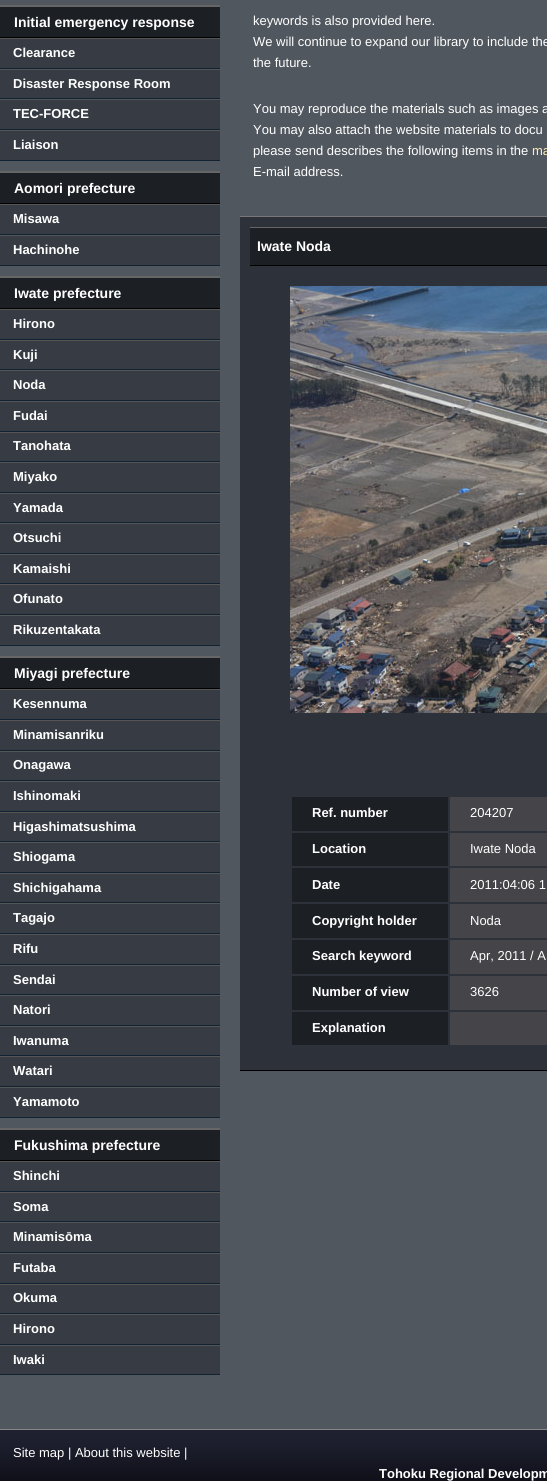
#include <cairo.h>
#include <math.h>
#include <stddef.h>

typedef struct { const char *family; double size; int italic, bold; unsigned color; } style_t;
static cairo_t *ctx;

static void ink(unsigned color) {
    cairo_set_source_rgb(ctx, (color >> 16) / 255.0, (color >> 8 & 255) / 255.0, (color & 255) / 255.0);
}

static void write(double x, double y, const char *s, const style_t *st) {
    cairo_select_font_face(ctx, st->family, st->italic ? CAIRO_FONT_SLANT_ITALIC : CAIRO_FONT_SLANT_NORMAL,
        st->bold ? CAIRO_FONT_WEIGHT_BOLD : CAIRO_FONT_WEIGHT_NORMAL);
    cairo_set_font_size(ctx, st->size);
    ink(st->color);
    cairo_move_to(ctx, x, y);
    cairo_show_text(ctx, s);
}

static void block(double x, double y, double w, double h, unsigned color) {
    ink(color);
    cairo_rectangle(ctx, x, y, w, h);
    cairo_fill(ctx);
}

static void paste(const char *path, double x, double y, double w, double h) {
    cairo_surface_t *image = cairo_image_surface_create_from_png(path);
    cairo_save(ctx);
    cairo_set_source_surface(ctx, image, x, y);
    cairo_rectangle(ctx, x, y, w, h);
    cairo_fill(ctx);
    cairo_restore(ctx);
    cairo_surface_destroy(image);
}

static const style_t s1 = {"Liberation Sans", 14, 0, 1, 0xffffff};
static const style_t s2 = {"Liberation Sans", 13, 0, 1, 0xffffff};
static const style_t s3 = {"Liberation Sans", 13, 0, 0, 0xffffff};
static const style_t s4 = {"Liberation Sans", 13, 0, 0, 0xffeebb};

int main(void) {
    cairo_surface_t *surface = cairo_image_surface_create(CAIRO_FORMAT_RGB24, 547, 1481);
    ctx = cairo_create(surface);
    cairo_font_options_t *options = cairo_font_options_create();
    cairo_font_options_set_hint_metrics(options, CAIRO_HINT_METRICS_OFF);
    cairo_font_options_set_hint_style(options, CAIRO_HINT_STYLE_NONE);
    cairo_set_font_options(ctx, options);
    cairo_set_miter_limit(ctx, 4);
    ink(0x51575e);
    cairo_paint(ctx);
    block(0, 7, 220, 30, 0x1c1f24);
    block(0, 5, 220, 2, 0x666666);
    block(0, 37, 220, 1, 0x000000);
    write(14, 27, "Initial emergency response", &s1);
    block(0, 39, 220, 121, 0x373b43);
    block(0, 38, 220, 1, 0x555555);
    block(0, 68, 220, 1, 0x112233);
    write(13, 57, "Clearance", &s2);
    block(0, 69, 220, 1, 0x555555);
    block(0, 98, 220, 1, 0x112233);
    write(13, 88, "Disaster Response Room", &s2);
    block(0, 99, 220, 1, 0x555555);
    block(0, 129, 220, 1, 0x112233);
    write(13, 118, "TEC-FORCE", &s2);
    block(0, 130, 220, 1, 0x555555);
    block(0, 160, 220, 1, 0x112233);
    write(13, 149, "Liaison", &s2);
    block(0, 173, 220, 30, 0x1c1f24);
    block(0, 171, 220, 2, 0x666666);
    block(0, 203, 220, 1, 0x000000);
    write(14, 193, "Aomori prefecture", &s1);
    block(0, 205, 220, 60, 0x373b43);
    block(0, 204, 220, 1, 0x555555);
    block(0, 234, 220, 1, 0x112233);
    write(13, 223, "Misawa", &s2);
    block(0, 235, 220, 1, 0x555555);
    block(0, 265, 220, 1, 0x112233);
    write(13, 254, "Hachinohe", &s2);
    block(0, 278, 220, 30, 0x1c1f24);
    block(0, 276, 220, 2, 0x666666);
    block(0, 308, 220, 1, 0x000000);
    write(14, 298, "Iwate prefecture", &s1);
    block(0, 310, 220, 335, 0x373b43);
    block(0, 309, 220, 1, 0x555555);
    block(0, 339, 220, 1, 0x112233);
    write(13, 328, "Hirono", &s2);
    block(0, 340, 220, 1, 0x555555);
    block(0, 369, 220, 1, 0x112233);
    write(13, 359, "Kuji", &s2);
    block(0, 370, 220, 1, 0x555555);
    block(0, 400, 220, 1, 0x112233);
    write(13, 389, "Noda", &s2);
    block(0, 401, 220, 1, 0x555555);
    block(0, 431, 220, 1, 0x112233);
    write(13, 420, "Fudai", &s2);
    block(0, 432, 220, 1, 0x555555);
    block(0, 461, 220, 1, 0x112233);
    write(13, 450, "Tanohata", &s2);
    block(0, 462, 220, 1, 0x555555);
    block(0, 492, 220, 1, 0x112233);
    write(13, 481, "Miyako", &s2);
    block(0, 493, 220, 1, 0x555555);
    block(0, 522, 220, 1, 0x112233);
    write(13, 512, "Yamada", &s2);
    block(0, 523, 220, 1, 0x555555);
    block(0, 553, 220, 1, 0x112233);
    write(13, 542, "Otsuchi", &s2);
    block(0, 554, 220, 1, 0x555555);
    block(0, 583, 220, 1, 0x112233);
    write(13, 573, "Kamaishi", &s2);
    block(0, 584, 220, 1, 0x555555);
    block(0, 614, 220, 1, 0x112233);
    write(13, 603, "Ofunato", &s2);
    block(0, 615, 220, 1, 0x555555);
    block(0, 645, 220, 1, 0x112233);
    write(13, 634, "Rikuzentakata", &s2);
    block(0, 658, 220, 30, 0x1c1f24);
    block(0, 656, 220, 2, 0x666666);
    block(0, 688, 220, 1, 0x000000);
    write(14, 678, "Miyagi prefecture", &s1);
    block(0, 690, 220, 427, 0x373b43);
    block(0, 689, 220, 1, 0x555555);
    block(0, 719, 220, 1, 0x112233);
    write(13, 708, "Kesennuma", &s2);
    block(0, 720, 220, 1, 0x555555);
    block(0, 750, 220, 1, 0x112233);
    write(13, 739, "Minamisanriku", &s2);
    block(0, 751, 220, 1, 0x555555);
    block(0, 780, 220, 1, 0x112233);
    write(13, 769, "Onagawa", &s2);
    block(0, 781, 220, 1, 0x555555);
    block(0, 811, 220, 1, 0x112233);
    write(13, 800, "Ishinomaki", &s2);
    block(0, 812, 220, 1, 0x555555);
    block(0, 841, 220, 1, 0x112233);
    write(13, 831, "Higashimatsushima", &s2);
    block(0, 842, 220, 1, 0x555555);
    block(0, 872, 220, 1, 0x112233);
    write(13, 861, "Shiogama", &s2);
    block(0, 873, 220, 1, 0x555555);
    block(0, 902, 220, 1, 0x112233);
    write(13, 892, "Shichigahama", &s2);
    block(0, 903, 220, 1, 0x555555);
    block(0, 933, 220, 1, 0x112233);
    write(13, 922, "Tagajo", &s2);
    block(0, 934, 220, 1, 0x555555);
    block(0, 964, 220, 1, 0x112233);
    write(13, 953, "Rifu", &s2);
    block(0, 965, 220, 1, 0x555555);
    block(0, 994, 220, 1, 0x112233);
    write(13, 984, "Sendai", &s2);
    block(0, 995, 220, 1, 0x555555);
    block(0, 1025, 220, 1, 0x112233);
    write(13, 1014, "Natori", &s2);
    block(0, 1026, 220, 1, 0x555555);
    block(0, 1055, 220, 1, 0x112233);
    write(13, 1045, "Iwanuma", &s2);
    block(0, 1056, 220, 1, 0x555555);
    block(0, 1086, 220, 1, 0x112233);
    write(13, 1075, "Watari", &s2);
    block(0, 1087, 220, 1, 0x555555);
    block(0, 1117, 220, 1, 0x112233);
    write(13, 1106, "Yamamoto", &s2);
    block(0, 1130, 220, 30, 0x1c1f24);
    block(0, 1128, 220, 2, 0x666666);
    block(0, 1160, 220, 1, 0x000000);
    write(14, 1150, "Fukushima prefecture", &s1);
    block(0, 1162, 220, 212, 0x373b43);
    block(0, 1161, 220, 1, 0x555555);
    block(0, 1191, 220, 1, 0x112233);
    write(13, 1180, "Shinchi", &s2);
    block(0, 1192, 220, 1, 0x555555);
    block(0, 1221, 220, 1, 0x112233);
    write(13, 1211, "Soma", &s2);
    block(0, 1222, 220, 1, 0x555555);
    block(0, 1252, 220, 1, 0x112233);
    write(13, 1241, "Minamisōma", &s2);
    block(0, 1253, 220, 1, 0x555555);
    block(0, 1283, 220, 1, 0x112233);
    write(13, 1272, "Futaba", &s2);
    block(0, 1284, 220, 1, 0x555555);
    block(0, 1313, 220, 1, 0x112233);
    write(13, 1302, "Okuma", &s2);
    block(0, 1314, 220, 1, 0x555555);
    block(0, 1344, 220, 1, 0x112233);
    write(13, 1333, "Hirono", &s2);
    block(0, 1345, 220, 1, 0x555555);
    block(0, 1374, 220, 1, 0x112233);
    write(13, 1364, "Iwaki", &s2);
    write(253, 25, "keywords is also provided here.", &s3);
    write(253, 46, "We will continue to expand our library to include the", &s3);
    write(253, 67, "the future.", &s3);
    write(253, 113, "You may reproduce the materials such as images a", &s3);
    write(253, 134, "You may also attach the website materials to docu", &s3);
    write(253, 155, "please send describes the following items in the", &s3);
    write(532, 155, "ma", &s4);
    write(253, 176, "E-mail address.", &s3);
    block(240, 217, 307, 853, 0x2d3139);
    block(240, 216, 307, 1, 0x777777);
    block(240, 1070, 307, 1, 0x000000);
    block(250, 228, 297, 37, 0x1c1f24);
    block(250, 227, 297, 1, 0x666666);
    block(250, 265, 297, 1, 0x000000);
    write(257, 251, "Iwate Noda", &s1);
    paste("pic1.png", 290, 286, 257, 427);
    block(292, 797, 156, 34, 0x1c1f24);
    write(312, 817, "Ref. number", &s2);
    block(450, 797, 97, 34, 0x444449);
    write(470, 817, "204207", &s3);
    block(292, 833, 156, 33, 0x1c1f24);
    write(312, 853, "Location", &s2);
    block(450, 833, 97, 33, 0x444449);
    write(470, 853, "Iwate Noda", &s3);
    block(292, 868, 156, 34, 0x1c1f24);
    write(312, 889, "Date", &s2);
    block(450, 868, 97, 34, 0x444449);
    write(470, 889, "2011:04:06 1", &s3);
    block(292, 904, 156, 34, 0x1c1f24);
    write(312, 925, "Copyright holder", &s2);
    block(450, 904, 97, 34, 0x444449);
    write(470, 925, "Noda", &s3);
    block(292, 940, 156, 34, 0x1c1f24);
    write(312, 960, "Search keyword", &s2);
    block(450, 940, 97, 34, 0x444449);
    write(470, 960, "Apr, 2011 / A", &s3);
    block(292, 976, 156, 34, 0x1c1f24);
    write(312, 996, "Number of view", &s2);
    block(450, 976, 97, 34, 0x444449);
    write(470, 996, "3626", &s3);
    block(292, 1012, 156, 33, 0x1c1f24);
    write(312, 1032, "Explanation", &s2);
    block(450, 1012, 97, 33, 0x444449);
    paste("pic2.png", 0, 1430, 547, 51);
    block(0, 1429, 547, 1, 0x888888);
    write(13, 1457, "Site map | About this website |", &s3);
    write(379, 1478, "Tohoku Regional Developm", &s2);
    cairo_surface_write_to_png(surface, "screenshot.png");
    cairo_font_options_destroy(options);
    cairo_destroy(ctx);
    cairo_surface_destroy(surface);
    return 0;
}
